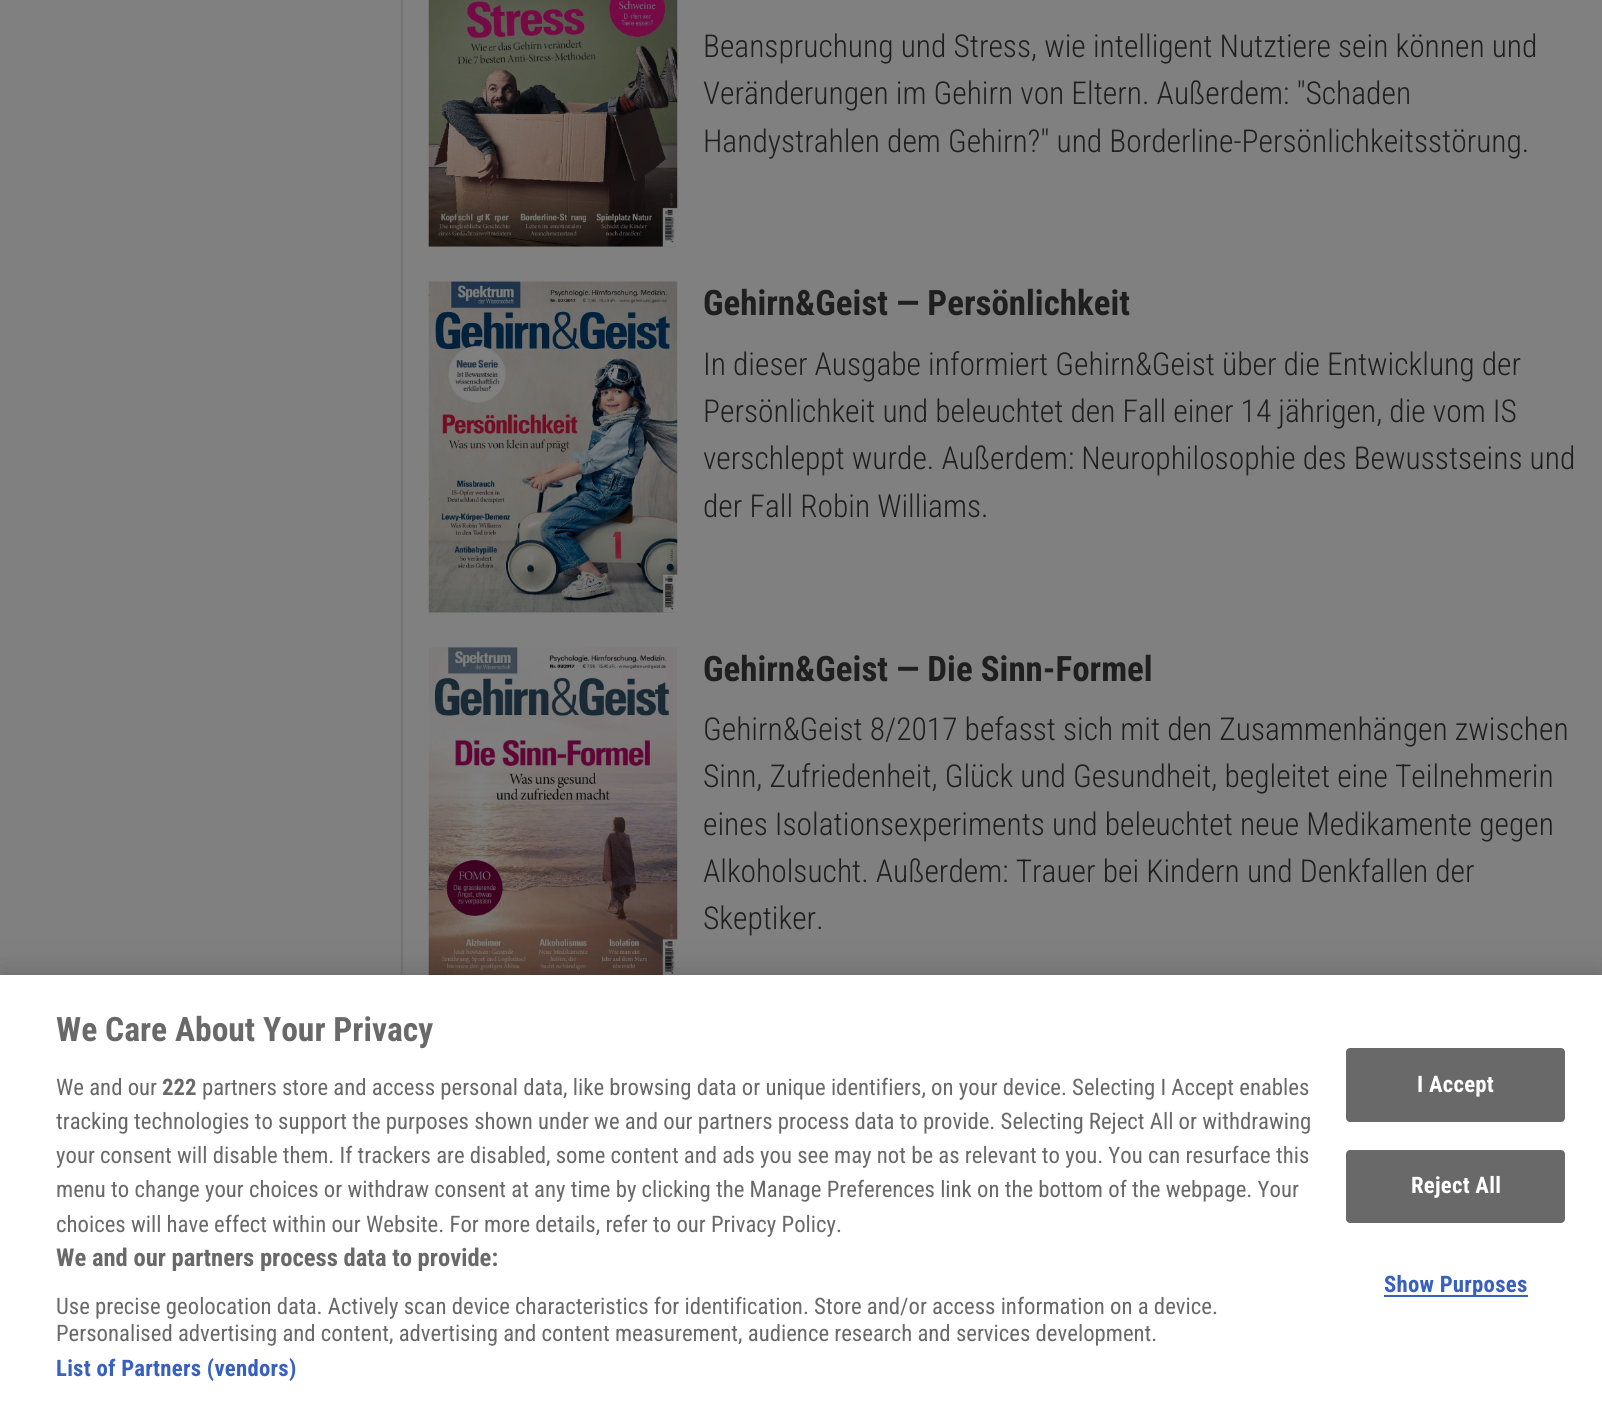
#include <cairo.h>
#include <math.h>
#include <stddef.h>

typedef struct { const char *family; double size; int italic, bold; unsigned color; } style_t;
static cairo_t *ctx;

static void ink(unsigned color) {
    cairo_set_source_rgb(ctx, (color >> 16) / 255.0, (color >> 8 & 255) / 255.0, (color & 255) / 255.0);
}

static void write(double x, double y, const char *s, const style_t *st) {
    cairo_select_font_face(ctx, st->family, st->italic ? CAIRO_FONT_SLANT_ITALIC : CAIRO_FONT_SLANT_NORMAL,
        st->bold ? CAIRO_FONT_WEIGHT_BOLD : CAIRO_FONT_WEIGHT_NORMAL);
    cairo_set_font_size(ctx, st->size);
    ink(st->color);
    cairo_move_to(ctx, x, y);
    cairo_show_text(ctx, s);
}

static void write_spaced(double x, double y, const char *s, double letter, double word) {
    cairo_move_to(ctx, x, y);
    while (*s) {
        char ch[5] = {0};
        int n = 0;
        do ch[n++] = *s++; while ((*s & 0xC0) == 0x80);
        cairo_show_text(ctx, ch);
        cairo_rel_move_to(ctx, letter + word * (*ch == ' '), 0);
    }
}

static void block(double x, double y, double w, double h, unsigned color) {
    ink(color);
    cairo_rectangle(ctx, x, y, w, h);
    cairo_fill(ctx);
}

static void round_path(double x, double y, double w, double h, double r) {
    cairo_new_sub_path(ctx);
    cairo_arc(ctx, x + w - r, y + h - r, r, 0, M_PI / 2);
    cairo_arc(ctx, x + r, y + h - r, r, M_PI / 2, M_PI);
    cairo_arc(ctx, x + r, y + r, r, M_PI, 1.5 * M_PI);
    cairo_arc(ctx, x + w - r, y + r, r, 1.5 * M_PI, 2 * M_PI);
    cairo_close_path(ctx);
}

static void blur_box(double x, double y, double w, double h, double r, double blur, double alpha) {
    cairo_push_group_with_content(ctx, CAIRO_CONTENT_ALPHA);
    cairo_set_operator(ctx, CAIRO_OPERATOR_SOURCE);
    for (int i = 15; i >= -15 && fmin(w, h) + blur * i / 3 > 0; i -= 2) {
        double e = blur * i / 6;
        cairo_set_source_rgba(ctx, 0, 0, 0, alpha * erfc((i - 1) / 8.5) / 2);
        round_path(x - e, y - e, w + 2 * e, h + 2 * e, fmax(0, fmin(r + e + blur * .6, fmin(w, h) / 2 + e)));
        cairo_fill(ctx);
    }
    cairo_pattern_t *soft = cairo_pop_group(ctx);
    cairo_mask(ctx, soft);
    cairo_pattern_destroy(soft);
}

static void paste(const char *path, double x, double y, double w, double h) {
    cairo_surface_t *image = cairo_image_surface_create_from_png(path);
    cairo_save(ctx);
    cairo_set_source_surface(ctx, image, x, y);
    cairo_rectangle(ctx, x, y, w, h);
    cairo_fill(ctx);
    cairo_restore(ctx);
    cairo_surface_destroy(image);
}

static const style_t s1 = {"Roboto Condensed Light", 31.5, 0, 0, 0x1f1f1f};
static const style_t s2 = {"Roboto Condensed", 35, 0, 1, 0x1f1f1f};
static const style_t s3 = {"Roboto Condensed", 33.6, 0, 1, 0x696969};
static const style_t s4 = {"Roboto Condensed", 22.75, 0, 0, 0x696969};
static const style_t s5 = {"Roboto Condensed", 22.75, 0, 1, 0x696969};
static const style_t s6 = {"Roboto Condensed", 24.6, 0, 1, 0x696969};

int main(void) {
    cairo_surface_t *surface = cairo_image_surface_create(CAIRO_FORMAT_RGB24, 1602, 1420);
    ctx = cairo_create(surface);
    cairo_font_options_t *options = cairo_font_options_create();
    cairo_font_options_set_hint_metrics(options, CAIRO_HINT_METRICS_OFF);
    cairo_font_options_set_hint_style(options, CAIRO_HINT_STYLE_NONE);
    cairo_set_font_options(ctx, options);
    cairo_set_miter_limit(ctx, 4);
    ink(0x808080);
    cairo_paint(ctx);
    block(401, 0, 2, 975, 0x737373);
    block(429, 246, 248, 1, 0x777777);
    paste("pic1.png", 428, 0, 250, 247);
    write(703, 57, "Beanspruchung und Stress, wie intelligent Nutztiere sein können und", &s1);
    write(703, 104, "Veränderungen im Gehirn von Eltern. Außerdem: \"Schaden", &s1);
    write(703, 152, "Handystrahlen dem Gehirn?\" und Borderline-Persönlichkeitsstörung.", &s1);
    block(429, 612, 248, 1, 0x777777);
    paste("pic2.png", 428, 281, 250, 332);
    write(703, 315, "Gehirn&Geist — Persönlichkeit", &s2);
    write(703, 375, "In dieser Ausgabe informiert Gehirn&Geist über die Entwicklung der", &s1);
    write(703, 422, "Persönlichkeit und beleuchtet den Fall einer 14 jährigen, die vom IS", &s1);
    write(703, 469, "verschleppt wurde. Außerdem: Neurophilosophie des Bewusstseins und", &s1);
    write(703, 517, "der Fall Robin Williams.", &s1);
    paste("pic3.png", 428, 647, 250, 328);
    write(703, 681, "Gehirn&Geist — Die Sinn-Formel", &s2);
    write(703, 740, "Gehirn&Geist 8/2017 befasst sich mit den Zusammenhängen zwischen", &s1);
    write(703, 787, "Sinn, Zufriedenheit, Glück und Gesundheit, begleitet eine Teilnehmerin", &s1);
    write(703, 835, "eines Isolationsexperiments und beleuchtet neue Medikamente gegen", &s1);
    write(703, 882, "Alkoholsucht. Außerdem: Trauer bei Kindern und Denkfallen der", &s1);
    write(703, 929, "Skeptiker.", &s1);
    ink(0x000000);
    blur_box(0, 975, 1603, 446, 0, 16, 0.2);
    block(0, 975, 1602, 445, 0xffffff);
    write(56, 1041, "We Care About Your Privacy", &s3);
    write(56, 1095, "We and our", &s4);
    write(162, 1095, "222", &s5);
    write(202, 1095, "partners store and access personal data, like browsing data or unique identifiers, on your device. Selecting I Accept enables", &s4);
    write(56, 1129, "tracking technologies to support the purposes shown under we and our partners process data to provide. Selecting Reject All or withdrawing", &s4);
    write(56, 1163, "your consent will disable them. If trackers are disabled, some content and ads you see may not be as relevant to you. You can resurface this", &s4);
    write(56, 1197, "menu to change your choices or withdraw consent at any time by clicking the Manage Preferences link on the bottom of the webpage. Your", &s4);
    write(56, 1232, "choices will have effect within our Website. For more details, refer to our Privacy Policy.", &s4);
    write(56, 1266, "We and our partners process data to provide:", &s6);
    write(56, 1314, "Use precise geolocation data. Actively scan device characteristics for identification. Store and/or access information on a device.", &s4);
    write(56, 1341, "Personalised advertising and content, advertising and content measurement, audience research and services development.", &s4);
    cairo_select_font_face(ctx, "Roboto Condensed", CAIRO_FONT_SLANT_NORMAL, CAIRO_FONT_WEIGHT_BOLD);
    ink(0x3860be);
    write_spaced(56, 1376, "List of Partners (vendors)", 0.25, 0);
    ink(0x696969);
    round_path(1347, 1049, 217, 72, 3);
    cairo_fill_preserve(ctx);
    cairo_stroke(ctx);
    ink(0xffffff);
    write_spaced(1417, 1092, "I Accept", 0.25, 0);
    ink(0x696969);
    round_path(1347, 1151, 217, 71, 3);
    cairo_fill_preserve(ctx);
    cairo_stroke(ctx);
    ink(0xffffff);
    write_spaced(1411, 1193, "Reject All", 0.25, 0);
    block(1384, 1295, 144, 2, 0x3860be);
    write_spaced(1384, 1292, "Show Purposes", 0.25, 0);
    cairo_surface_write_to_png(surface, "screenshot.png");
    cairo_font_options_destroy(options);
    cairo_destroy(ctx);
    cairo_surface_destroy(surface);
    return 0;
}
